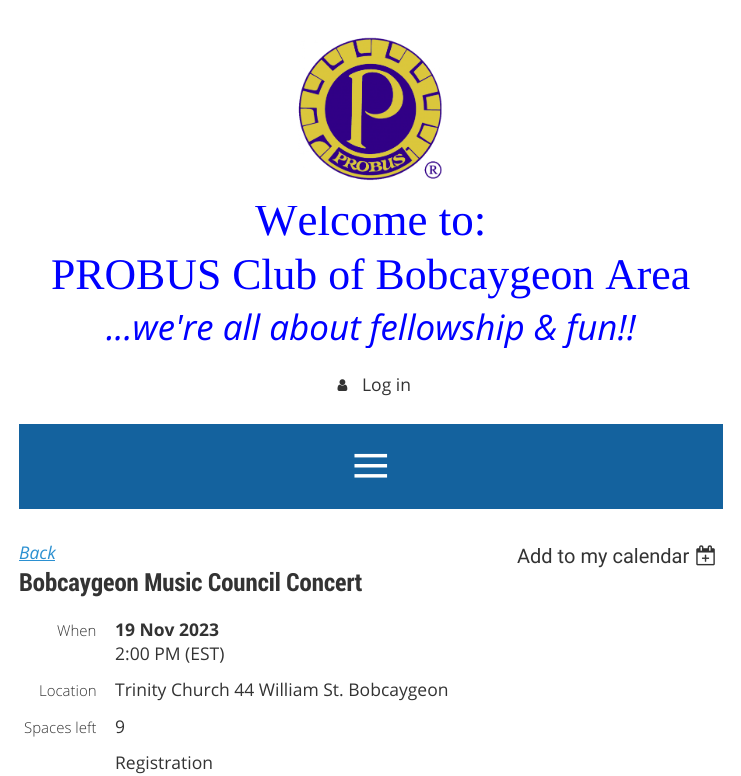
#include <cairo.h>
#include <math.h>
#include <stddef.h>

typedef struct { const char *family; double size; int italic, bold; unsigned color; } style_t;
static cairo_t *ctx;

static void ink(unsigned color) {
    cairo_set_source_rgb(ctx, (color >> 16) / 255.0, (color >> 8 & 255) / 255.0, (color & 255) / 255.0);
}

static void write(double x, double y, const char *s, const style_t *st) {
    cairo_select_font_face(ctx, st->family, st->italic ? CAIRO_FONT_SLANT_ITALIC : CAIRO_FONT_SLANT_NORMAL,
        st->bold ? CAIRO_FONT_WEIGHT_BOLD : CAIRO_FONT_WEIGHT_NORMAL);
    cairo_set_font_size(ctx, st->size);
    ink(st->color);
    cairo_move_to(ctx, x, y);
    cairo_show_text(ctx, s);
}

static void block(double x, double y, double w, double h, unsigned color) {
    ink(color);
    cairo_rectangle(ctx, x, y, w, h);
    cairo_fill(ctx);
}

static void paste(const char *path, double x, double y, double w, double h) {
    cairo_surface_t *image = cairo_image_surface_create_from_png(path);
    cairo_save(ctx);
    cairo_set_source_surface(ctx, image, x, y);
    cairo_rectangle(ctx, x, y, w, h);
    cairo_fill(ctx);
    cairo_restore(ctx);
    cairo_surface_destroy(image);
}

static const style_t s1 = {"Liberation Serif", 45, 0, 0, 0x0000ff};
static const style_t s2 = {"Liberation Serif", 43.75, 0, 0, 0x0000ff};
static const style_t s3 = {"Open Sans", 35, 1, 0, 0x0000ff};
static const style_t s4 = {"Open Sans", 17.5, 0, 0, 0x333333};
static const style_t s5 = {"Liberation Serif", 70, 0, 0, 0xffffff};
static const style_t s6 = {"Open Sans", 17.5, 1, 0, 0x2b90d1};
static const style_t s7 = {"Roboto", 20, 0, 0, 0x333333};
static const style_t s8 = {"Roboto Condensed", 25, 0, 1, 0x333333};
static const style_t s9 = {"Open Sans Light", 15, 0, 0, 0x333333};
static const style_t s10 = {"Open Sans", 17.5, 0, 1, 0x333333};

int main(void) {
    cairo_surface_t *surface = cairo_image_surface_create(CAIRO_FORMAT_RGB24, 741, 776);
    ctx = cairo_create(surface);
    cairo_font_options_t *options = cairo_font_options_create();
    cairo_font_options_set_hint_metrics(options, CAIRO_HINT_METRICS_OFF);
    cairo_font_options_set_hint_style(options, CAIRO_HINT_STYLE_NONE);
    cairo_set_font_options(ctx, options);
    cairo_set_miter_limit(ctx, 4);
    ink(0xffffff);
    cairo_paint(ctx);
    paste("pic1.png", 298, 37, 144, 144);
    cairo_save(ctx);
    cairo_rectangle(ctx, 19, 206, 704, 142);
    cairo_clip(ctx);
    write(255, 235, "Welcome to:", &s1);
    cairo_restore(ctx);
    write(51, 289, "PROBUS Club of Bobcaygeon Area", &s2);
    cairo_save(ctx);
    cairo_rectangle(ctx, 19, 206, 704, 142);
    cairo_clip(ctx);
    write(106, 340, "...we're all about fellowship & fun!!", &s3);
    cairo_restore(ctx);
    paste("pic2.png", 337, 379, 11, 12);
    write(362, 391, "Log in", &s4);
    block(19, 424, 704, 85, 0x14629e);
    write(351, 489, "≡", &s5);
    write(19, 559, "Back", &s6);
    block(19, 560, 36, 1, 0x2b90d1);
    write(517, 563, "Add to my calendar", &s7);
    paste("pic3.png", 696, 545, 19, 21);
    write(19, 591, "Bobcaygeon Music Council Concert", &s8);
    write(57, 636, "When", &s9);
    write(115, 636, "19 Nov 2023", &s10);
    write(115, 660, "2:00 PM (EST)", &s4);
    write(39, 696, "Location", &s9);
    write(115, 696, "Trinity Church 44 William St. Bobcaygeon", &s4);
    write(24, 733, "Spaces left", &s9);
    write(115, 733, "9", &s4);
    write(115, 769, "Registration", &s4);
    cairo_surface_write_to_png(surface, "screenshot.png");
    cairo_font_options_destroy(options);
    cairo_destroy(ctx);
    cairo_surface_destroy(surface);
    return 0;
}
